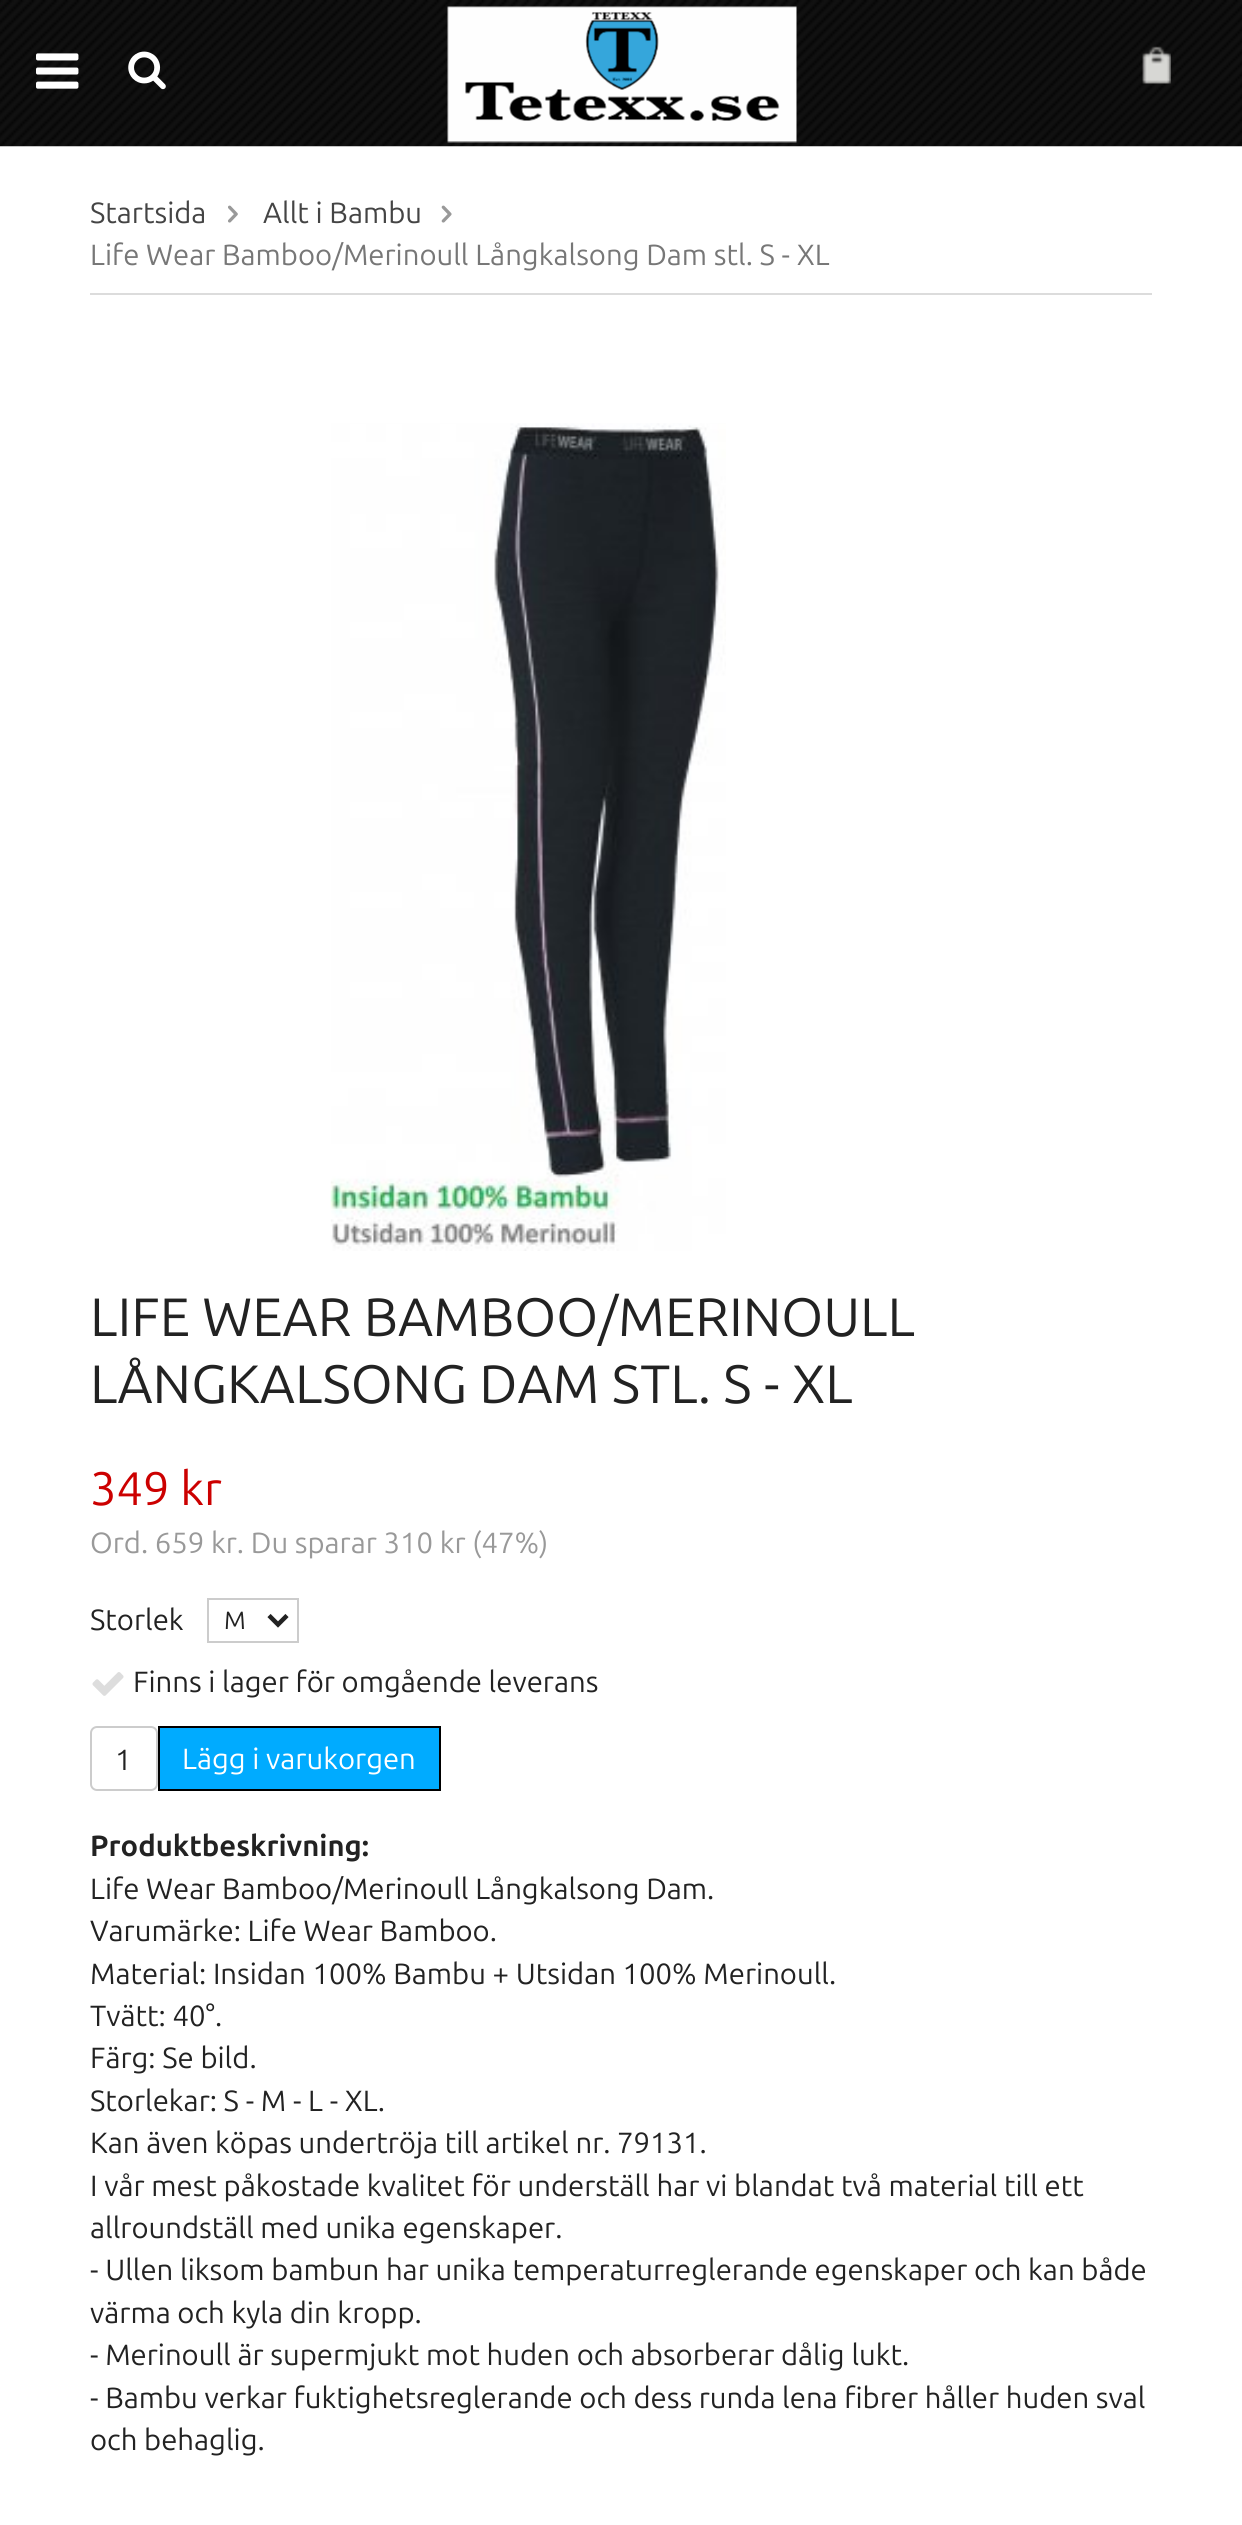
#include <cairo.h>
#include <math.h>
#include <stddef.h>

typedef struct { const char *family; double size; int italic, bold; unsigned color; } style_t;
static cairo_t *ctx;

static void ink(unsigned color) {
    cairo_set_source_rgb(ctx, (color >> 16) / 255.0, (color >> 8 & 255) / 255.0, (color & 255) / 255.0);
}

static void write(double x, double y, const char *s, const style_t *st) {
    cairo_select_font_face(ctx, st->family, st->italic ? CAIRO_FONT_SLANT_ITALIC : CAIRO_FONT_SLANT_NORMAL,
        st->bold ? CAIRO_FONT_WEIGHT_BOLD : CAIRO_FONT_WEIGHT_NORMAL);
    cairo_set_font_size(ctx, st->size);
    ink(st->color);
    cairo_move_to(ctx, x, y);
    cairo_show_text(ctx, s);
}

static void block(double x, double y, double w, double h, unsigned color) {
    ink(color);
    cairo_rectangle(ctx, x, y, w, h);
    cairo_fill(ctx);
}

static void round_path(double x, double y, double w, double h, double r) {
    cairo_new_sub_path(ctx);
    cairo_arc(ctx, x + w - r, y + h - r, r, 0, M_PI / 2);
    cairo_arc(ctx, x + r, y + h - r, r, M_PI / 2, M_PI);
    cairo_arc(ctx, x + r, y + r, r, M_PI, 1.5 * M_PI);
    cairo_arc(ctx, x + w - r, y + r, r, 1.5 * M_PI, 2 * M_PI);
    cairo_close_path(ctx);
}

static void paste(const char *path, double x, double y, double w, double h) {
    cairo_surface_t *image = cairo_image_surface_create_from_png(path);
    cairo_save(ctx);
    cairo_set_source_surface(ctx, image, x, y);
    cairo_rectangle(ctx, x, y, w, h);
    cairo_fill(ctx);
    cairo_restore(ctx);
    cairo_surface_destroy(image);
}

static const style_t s1 = {"Ubuntu", 29.25, 0, 0, 0x444444};
static const style_t s2 = {"Ubuntu", 29.25, 0, 0, 0x777777};
static const style_t s3 = {"Ubuntu", 54, 0, 0, 0x222222};
static const style_t s4 = {"Ubuntu", 47, 0, 0, 0xcc0000};
static const style_t s5 = {"Ubuntu", 29.25, 0, 0, 0x999999};
static const style_t s6 = {"Ubuntu", 29.25, 0, 0, 0x222222};
static const style_t s7 = {"Ubuntu", 25, 0, 0, 0x222222};
static const style_t s8 = {"Ubuntu", 29.25, 0, 0, 0xffffff};
static const style_t s9 = {"Ubuntu", 29.25, 0, 1, 0x222222};

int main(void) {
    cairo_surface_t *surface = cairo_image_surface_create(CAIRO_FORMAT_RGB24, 1242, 2525);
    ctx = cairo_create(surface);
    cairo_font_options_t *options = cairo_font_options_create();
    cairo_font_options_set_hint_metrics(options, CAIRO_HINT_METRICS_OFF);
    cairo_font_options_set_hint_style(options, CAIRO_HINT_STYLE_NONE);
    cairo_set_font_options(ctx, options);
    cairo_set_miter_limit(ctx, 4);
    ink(0xffffff);
    cairo_paint(ctx);
    paste("pic1.png", 0, 0, 1242, 147);
    paste("pic2.png", 36, 53, 43, 36);
    paste("pic3.png", 128, 51, 38, 39);
    paste("pic4.png", 447, 6, 350, 137);
    paste("pic5.png", 1142, 46, 29, 38);
    block(90, 293, 1062, 2, 0xdcdcdc);
    write(90, 223, "Startsida", &s1);
    paste("pic6.png", 228, 205, 10, 18);
    write(263, 223, "Allt i Bambu", &s1);
    paste("pic7.png", 441, 205, 11, 18);
    write(90, 265, "Life Wear Bamboo/Merinoull Långkalsong Dam stl. S - XL", &s2);
    paste("pic8.png", 330, 423, 396, 828);
    write(90, 1336, "LIFE WEAR BAMBOO/MERINOULL", &s3);
    write(90, 1403, "LÅNGKALSONG DAM STL. S - XL", &s3);
    write(90, 1505, "349 kr", &s4);
    write(90, 1553, "Ord. 659 kr. Du sparar 310 kr (47%)", &s5);
    write(90, 1630, "Storlek", &s6);
    cairo_rectangle(ctx, 208, 1599, 90, 43);
    ink(0xcccccc);
    cairo_stroke(ctx);
    cairo_new_path(ctx);
    cairo_move_to(ctx, 269, 1615.5);
    cairo_line_to(ctx, 278, 1624.5);
    cairo_line_to(ctx, 287, 1615.5);
    ink(0x222222);
    cairo_set_line_width(ctx, 4.5);
    cairo_stroke(ctx);
    write(224, 1629, "M", &s7);
    paste("pic9.png", 92, 1672, 32, 24);
    write(133, 1692, "Finns i lager för omgående leverans", &s6);
    round_path(91, 1727, 66, 63, 6);
    ink(0xcccccc);
    cairo_set_line_width(ctx, 2);
    cairo_stroke(ctx);
    write(115, 1770, "1", &s6);
    ink(0x00abff);
    cairo_rectangle(ctx, 159, 1727, 281, 63);
    cairo_fill_preserve(ctx);
    ink(0x000000);
    cairo_stroke(ctx);
    write(182, 1769, "Lägg i varukorgen", &s8);
    write(90, 1856, "Produktbeskrivning:", &s9);
    write(90, 1899, "Life Wear Bamboo/Merinoull Långkalsong Dam.", &s6);
    write(90, 1941, "Varumärke: Life Wear Bamboo.", &s6);
    write(90, 1984, "Material: Insidan 100% Bambu + Utsidan 100% Merinoull.", &s6);
    write(90, 2026, "Tvätt: 40°.", &s6);
    write(90, 2068, "Färg: Se bild.", &s6);
    write(90, 2111, "Storlekar: S - M - L - XL.", &s6);
    write(90, 2153, "Kan även köpas undertröja till artikel nr. 79131.", &s6);
    write(90, 2196, "I vår mest påkostade kvalitet för underställ har vi blandat två material till ett", &s6);
    write(90, 2238, "allroundställ med unika egenskaper.", &s6);
    write(90, 2280, "- Ullen liksom bambun har unika temperaturreglerande egenskaper och kan både", &s6);
    write(90, 2323, "värma och kyla din kropp.", &s6);
    write(90, 2365, "- Merinoull är supermjukt mot huden och absorberar dålig lukt.", &s6);
    write(90, 2408, "- Bambu verkar fuktighetsreglerande och dess runda lena fibrer håller huden sval", &s6);
    write(90, 2450, "och behaglig.", &s6);
    cairo_surface_write_to_png(surface, "screenshot.png");
    cairo_font_options_destroy(options);
    cairo_destroy(ctx);
    cairo_surface_destroy(surface);
    return 0;
}
